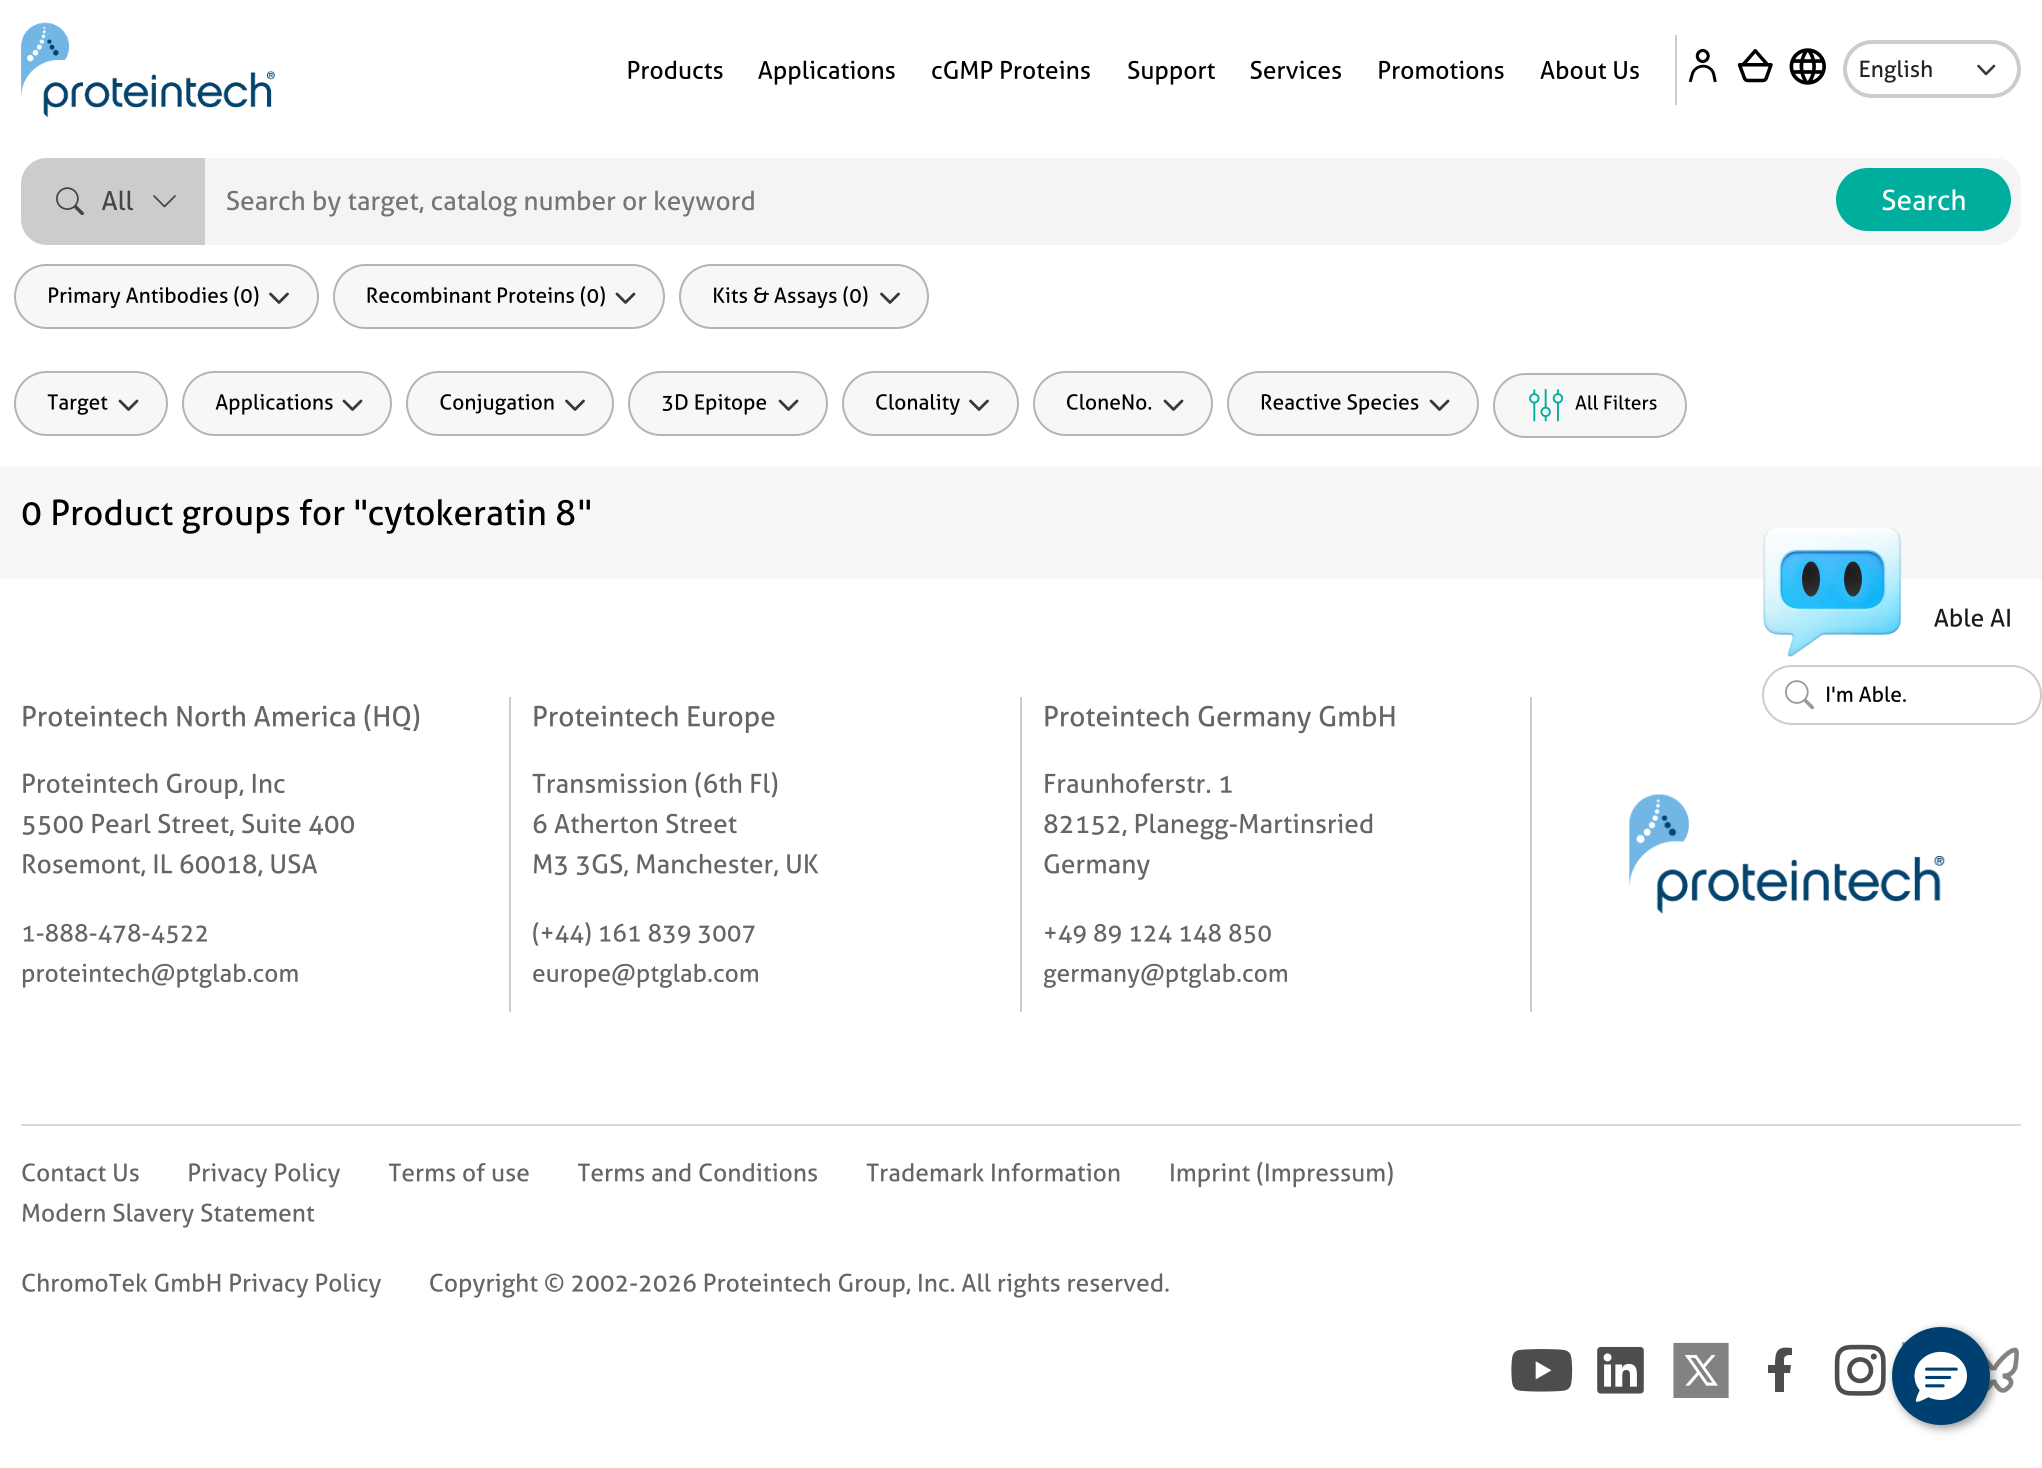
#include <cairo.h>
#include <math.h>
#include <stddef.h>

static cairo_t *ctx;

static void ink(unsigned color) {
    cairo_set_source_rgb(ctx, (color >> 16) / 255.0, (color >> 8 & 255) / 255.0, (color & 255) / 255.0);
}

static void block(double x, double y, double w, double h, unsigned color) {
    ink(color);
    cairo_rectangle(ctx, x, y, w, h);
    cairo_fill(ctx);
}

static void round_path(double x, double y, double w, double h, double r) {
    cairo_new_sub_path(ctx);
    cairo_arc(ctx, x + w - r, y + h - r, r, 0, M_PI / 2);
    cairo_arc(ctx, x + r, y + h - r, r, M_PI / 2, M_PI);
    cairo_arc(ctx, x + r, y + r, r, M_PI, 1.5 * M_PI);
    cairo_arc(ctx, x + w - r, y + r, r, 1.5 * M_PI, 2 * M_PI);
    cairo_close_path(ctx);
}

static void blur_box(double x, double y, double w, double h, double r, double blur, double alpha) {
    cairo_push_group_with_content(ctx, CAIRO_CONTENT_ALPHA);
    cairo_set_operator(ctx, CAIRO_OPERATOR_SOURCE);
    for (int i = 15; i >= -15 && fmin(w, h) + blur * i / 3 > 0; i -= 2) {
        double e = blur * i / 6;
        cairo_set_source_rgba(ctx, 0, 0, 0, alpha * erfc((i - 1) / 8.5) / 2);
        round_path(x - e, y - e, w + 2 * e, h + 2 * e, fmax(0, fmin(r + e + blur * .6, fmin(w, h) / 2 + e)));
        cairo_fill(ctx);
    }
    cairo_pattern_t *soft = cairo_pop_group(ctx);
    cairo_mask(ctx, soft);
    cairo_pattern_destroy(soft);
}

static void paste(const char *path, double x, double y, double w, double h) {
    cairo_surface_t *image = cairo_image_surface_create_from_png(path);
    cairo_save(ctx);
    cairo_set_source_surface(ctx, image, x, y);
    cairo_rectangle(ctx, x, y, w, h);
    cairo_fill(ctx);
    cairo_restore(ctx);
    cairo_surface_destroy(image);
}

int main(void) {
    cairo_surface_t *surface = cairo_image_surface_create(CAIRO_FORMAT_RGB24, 2042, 1468);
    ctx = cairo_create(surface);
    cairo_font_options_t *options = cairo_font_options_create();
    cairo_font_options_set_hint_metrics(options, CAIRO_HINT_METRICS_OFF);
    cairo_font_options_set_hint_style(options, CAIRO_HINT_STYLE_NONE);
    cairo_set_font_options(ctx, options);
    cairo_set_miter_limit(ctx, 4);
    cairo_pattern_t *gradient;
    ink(0xffffff);
    cairo_paint(ctx);
    paste("pic1.png", 21, 22, 254, 96);
    paste("pic2.png", 628, 60, 95, 19);
    paste("pic3.png", 758, 60, 137, 25);
    paste("pic4.png", 932, 60, 158, 20);
    paste("pic5.png", 1128, 60, 87, 25);
    paste("pic6.png", 1250, 60, 91, 19);
    paste("pic7.png", 1379, 60, 125, 19);
    paste("pic8.png", 1540, 60, 99, 19);
    block(1675, 35, 2, 70, 0xcccccc);
    paste("pic9.png", 1688, 49, 29, 34);
    paste("pic10.png", 1737, 49, 36, 34);
    paste("pic11.png", 1789, 48, 37, 37);
    cairo_new_path(ctx);
    cairo_move_to(ctx, 1978.5, 66);
    cairo_line_to(ctx, 1986, 74);
    cairo_line_to(ctx, 1994, 66);
    ink(0x343a40);
    cairo_set_line_width(ctx, 2.6);
    cairo_set_line_cap(ctx, CAIRO_LINE_CAP_ROUND);
    cairo_set_line_join(ctx, CAIRO_LINE_JOIN_ROUND);
    cairo_stroke(ctx);
    round_path(1845, 42, 174, 54, 27);
    ink(0xcccccc);
    cairo_set_line_width(ctx, 4);
    cairo_set_line_cap(ctx, CAIRO_LINE_CAP_BUTT);
    cairo_set_line_join(ctx, CAIRO_LINE_JOIN_MITER);
    cairo_stroke(ctx);
    paste("pic12.png", 1860, 60, 72, 23);
    ink(0xf4f4f4);
    round_path(21, 158, 2000, 87, 26);
    cairo_fill(ctx);
    ink(0xcccccc);
    cairo_new_path(ctx);
    cairo_move_to(ctx, 47, 158);
    cairo_line_to(ctx, 205, 158);
    cairo_line_to(ctx, 205, 245);
    cairo_line_to(ctx, 47, 245);
    cairo_curve_to(ctx, 32.5, 245, 21, 233.5, 21, 219);
    cairo_line_to(ctx, 21, 184);
    cairo_curve_to(ctx, 21, 169.5, 32.5, 158, 47, 158);
    cairo_close_path(ctx);
    cairo_fill(ctx);
    paste("pic13.png", 56, 187, 28, 28);
    paste("pic14.png", 102, 190, 31, 21);
    paste("pic15.png", 153, 195, 23, 13);
    paste("pic16.png", 227, 190, 527, 27);
    ink(0x00ae9e);
    round_path(1836, 168, 175, 63, 31.5);
    cairo_fill(ctx);
    paste("pic17.png", 1882, 189, 83, 22);
    ink(0xf7f7f7);
    round_path(15, 265, 303, 63, 31.5);
    cairo_fill_preserve(ctx);
    ink(0xb4b4b4);
    cairo_set_line_width(ctx, 2);
    cairo_stroke(ctx);
    paste("pic18.png", 49, 286, 210, 22);
    cairo_new_path(ctx);
    cairo_move_to(ctx, 270.5, 294);
    cairo_line_to(ctx, 279, 302.5);
    cairo_line_to(ctx, 287.5, 294);
    ink(0x343a40);
    cairo_set_line_width(ctx, 2.8);
    cairo_set_line_cap(ctx, CAIRO_LINE_CAP_ROUND);
    cairo_set_line_join(ctx, CAIRO_LINE_JOIN_ROUND);
    cairo_stroke(ctx);
    ink(0xf7f7f7);
    round_path(334, 265, 330, 63, 31.5);
    cairo_fill_preserve(ctx);
    ink(0xb4b4b4);
    cairo_set_line_width(ctx, 2);
    cairo_set_line_cap(ctx, CAIRO_LINE_CAP_BUTT);
    cairo_set_line_join(ctx, CAIRO_LINE_JOIN_MITER);
    cairo_stroke(ctx);
    paste("pic19.png", 367, 286, 238, 21);
    cairo_new_path(ctx);
    cairo_move_to(ctx, 617, 294);
    cairo_line_to(ctx, 625.5, 302.5);
    cairo_line_to(ctx, 634, 294);
    ink(0x343a40);
    cairo_set_line_width(ctx, 2.8);
    cairo_set_line_cap(ctx, CAIRO_LINE_CAP_ROUND);
    cairo_set_line_join(ctx, CAIRO_LINE_JOIN_ROUND);
    cairo_stroke(ctx);
    ink(0xf7f7f7);
    round_path(680, 265, 248, 63, 31.5);
    cairo_fill_preserve(ctx);
    ink(0xb4b4b4);
    cairo_set_line_width(ctx, 2);
    cairo_set_line_cap(ctx, CAIRO_LINE_CAP_BUTT);
    cairo_set_line_join(ctx, CAIRO_LINE_JOIN_MITER);
    cairo_stroke(ctx);
    paste("pic20.png", 714, 286, 154, 22);
    cairo_new_path(ctx);
    cairo_move_to(ctx, 881.5, 294);
    cairo_line_to(ctx, 890, 302.5);
    cairo_line_to(ctx, 898.5, 294);
    ink(0x343a40);
    cairo_set_line_width(ctx, 2.8);
    cairo_set_line_cap(ctx, CAIRO_LINE_CAP_ROUND);
    cairo_set_line_join(ctx, CAIRO_LINE_JOIN_ROUND);
    cairo_stroke(ctx);
    ink(0xf7f7f7);
    round_path(15, 372, 152, 63, 31.5);
    cairo_fill_preserve(ctx);
    ink(0xb4b4b4);
    cairo_set_line_width(ctx, 2);
    cairo_set_line_cap(ctx, CAIRO_LINE_CAP_BUTT);
    cairo_set_line_join(ctx, CAIRO_LINE_JOIN_MITER);
    cairo_stroke(ctx);
    paste("pic21.png", 47, 394, 61, 21);
    cairo_new_path(ctx);
    cairo_move_to(ctx, 120, 401);
    cairo_line_to(ctx, 128.5, 409.5);
    cairo_line_to(ctx, 137, 401);
    ink(0x343a40);
    cairo_set_line_width(ctx, 2.8);
    cairo_set_line_cap(ctx, CAIRO_LINE_CAP_ROUND);
    cairo_set_line_join(ctx, CAIRO_LINE_JOIN_ROUND);
    cairo_stroke(ctx);
    ink(0xf7f7f7);
    round_path(183, 372, 208, 63, 31.5);
    cairo_fill_preserve(ctx);
    ink(0xb4b4b4);
    cairo_set_line_width(ctx, 2);
    cairo_set_line_cap(ctx, CAIRO_LINE_CAP_BUTT);
    cairo_set_line_join(ctx, CAIRO_LINE_JOIN_MITER);
    cairo_stroke(ctx);
    paste("pic22.png", 215, 394, 118, 21);
    cairo_new_path(ctx);
    cairo_move_to(ctx, 344, 401);
    cairo_line_to(ctx, 352.5, 409.5);
    cairo_line_to(ctx, 361, 401);
    ink(0x343a40);
    cairo_set_line_width(ctx, 2.8);
    cairo_set_line_cap(ctx, CAIRO_LINE_CAP_ROUND);
    cairo_set_line_join(ctx, CAIRO_LINE_JOIN_ROUND);
    cairo_stroke(ctx);
    ink(0xf7f7f7);
    round_path(407, 372, 206, 63, 31.5);
    cairo_fill_preserve(ctx);
    ink(0xb4b4b4);
    cairo_set_line_width(ctx, 2);
    cairo_set_line_cap(ctx, CAIRO_LINE_CAP_BUTT);
    cairo_set_line_join(ctx, CAIRO_LINE_JOIN_MITER);
    cairo_stroke(ctx);
    paste("pic23.png", 440, 394, 114, 21);
    cairo_new_path(ctx);
    cairo_move_to(ctx, 566.5, 401);
    cairo_line_to(ctx, 575, 409.5);
    cairo_line_to(ctx, 583.5, 401);
    ink(0x343a40);
    cairo_set_line_width(ctx, 2.8);
    cairo_set_line_cap(ctx, CAIRO_LINE_CAP_ROUND);
    cairo_set_line_join(ctx, CAIRO_LINE_JOIN_ROUND);
    cairo_stroke(ctx);
    ink(0xf7f7f7);
    round_path(629, 372, 198, 63, 31.5);
    cairo_fill_preserve(ctx);
    ink(0xb4b4b4);
    cairo_set_line_width(ctx, 2);
    cairo_set_line_cap(ctx, CAIRO_LINE_CAP_BUTT);
    cairo_set_line_join(ctx, CAIRO_LINE_JOIN_MITER);
    cairo_stroke(ctx);
    paste("pic24.png", 662, 394, 105, 21);
    cairo_new_path(ctx);
    cairo_move_to(ctx, 780, 401);
    cairo_line_to(ctx, 788.5, 409.5);
    cairo_line_to(ctx, 797, 401);
    ink(0x343a40);
    cairo_set_line_width(ctx, 2.8);
    cairo_set_line_cap(ctx, CAIRO_LINE_CAP_ROUND);
    cairo_set_line_join(ctx, CAIRO_LINE_JOIN_ROUND);
    cairo_stroke(ctx);
    ink(0xf7f7f7);
    round_path(843, 372, 175, 63, 31.5);
    cairo_fill_preserve(ctx);
    ink(0xb4b4b4);
    cairo_set_line_width(ctx, 2);
    cairo_set_line_cap(ctx, CAIRO_LINE_CAP_BUTT);
    cairo_set_line_join(ctx, CAIRO_LINE_JOIN_MITER);
    cairo_stroke(ctx);
    paste("pic25.png", 876, 394, 84, 21);
    cairo_new_path(ctx);
    cairo_move_to(ctx, 970.5, 401);
    cairo_line_to(ctx, 979, 409.5);
    cairo_line_to(ctx, 987.5, 401);
    ink(0x343a40);
    cairo_set_line_width(ctx, 2.8);
    cairo_set_line_cap(ctx, CAIRO_LINE_CAP_ROUND);
    cairo_set_line_join(ctx, CAIRO_LINE_JOIN_ROUND);
    cairo_stroke(ctx);
    ink(0xf7f7f7);
    round_path(1034, 372, 178, 63, 31.5);
    cairo_fill_preserve(ctx);
    ink(0xb4b4b4);
    cairo_set_line_width(ctx, 2);
    cairo_set_line_cap(ctx, CAIRO_LINE_CAP_BUTT);
    cairo_set_line_join(ctx, CAIRO_LINE_JOIN_MITER);
    cairo_stroke(ctx);
    paste("pic26.png", 1067, 394, 85, 16);
    cairo_new_path(ctx);
    cairo_move_to(ctx, 1165, 401);
    cairo_line_to(ctx, 1173.5, 409.5);
    cairo_line_to(ctx, 1182, 401);
    ink(0x343a40);
    cairo_set_line_width(ctx, 2.8);
    cairo_set_line_cap(ctx, CAIRO_LINE_CAP_ROUND);
    cairo_set_line_join(ctx, CAIRO_LINE_JOIN_ROUND);
    cairo_stroke(ctx);
    ink(0xf7f7f7);
    round_path(1228, 372, 250, 63, 31.5);
    cairo_fill_preserve(ctx);
    ink(0xb4b4b4);
    cairo_set_line_width(ctx, 2);
    cairo_set_line_cap(ctx, CAIRO_LINE_CAP_BUTT);
    cairo_set_line_join(ctx, CAIRO_LINE_JOIN_MITER);
    cairo_stroke(ctx);
    paste("pic27.png", 1261, 394, 158, 21);
    cairo_new_path(ctx);
    cairo_move_to(ctx, 1431, 401);
    cairo_line_to(ctx, 1439.5, 409.5);
    cairo_line_to(ctx, 1448, 401);
    ink(0x343a40);
    cairo_set_line_width(ctx, 2.8);
    cairo_set_line_cap(ctx, CAIRO_LINE_CAP_ROUND);
    cairo_set_line_join(ctx, CAIRO_LINE_JOIN_ROUND);
    cairo_stroke(ctx);
    ink(0xf7f7f7);
    round_path(1494, 374, 192, 63, 31.5);
    cairo_fill_preserve(ctx);
    ink(0xb4b4b4);
    cairo_set_line_width(ctx, 2);
    cairo_set_line_cap(ctx, CAIRO_LINE_CAP_BUTT);
    cairo_set_line_join(ctx, CAIRO_LINE_JOIN_MITER);
    cairo_stroke(ctx);
    paste("pic28.png", 1529, 389, 35, 33);
    paste("pic29.png", 1575, 395, 82, 15);
    block(0, 466, 2042, 113, 0xf7f7f7);
    paste("pic30.png", 22, 499, 344, 35);
    paste("pic31.png", 369, 499, 206, 35);
    paste("pic32.png", 579, 499, 11, 11);
    paste("pic33.png", 1763, 527, 139, 130);
    gradient = cairo_pattern_create_radial(1808, 572, 0, 1808, 572, 27);
    cairo_pattern_add_color_stop_rgba(gradient, 0, 0.102, 0.102, 0.102, 1);
    cairo_pattern_add_color_stop_rgba(gradient, 0.9, 0.2, 0.2, 0.2, 1);
    cairo_set_source(ctx, gradient);
    cairo_pattern_destroy(gradient);
    cairo_new_path(ctx);
    cairo_move_to(ctx, 1811, 561.5);
    cairo_curve_to(ctx, 1816, 561.5, 1820, 569.5, 1820, 579);
    cairo_curve_to(ctx, 1820, 588.5, 1816, 596.5, 1811, 596.5);
    cairo_curve_to(ctx, 1806, 596.5, 1802, 588.5, 1802, 579);
    cairo_curve_to(ctx, 1802, 569.5, 1806, 561.5, 1811, 561.5);
    cairo_close_path(ctx);
    cairo_fill(ctx);
    gradient = cairo_pattern_create_radial(1850, 572, 0, 1850, 572, 27);
    cairo_pattern_add_color_stop_rgba(gradient, 0, 0.102, 0.102, 0.102, 1);
    cairo_pattern_add_color_stop_rgba(gradient, 0.9, 0.2, 0.2, 0.2, 1);
    cairo_set_source(ctx, gradient);
    cairo_pattern_destroy(gradient);
    cairo_new_path(ctx);
    cairo_move_to(ctx, 1853, 561.5);
    cairo_curve_to(ctx, 1858, 561.5, 1862, 569.5, 1862, 579);
    cairo_curve_to(ctx, 1862, 588.5, 1858, 596.5, 1853, 596.5);
    cairo_curve_to(ctx, 1848, 596.5, 1844, 588.5, 1844, 579);
    cairo_curve_to(ctx, 1844, 569.5, 1848, 561.5, 1853, 561.5);
    cairo_close_path(ctx);
    cairo_fill(ctx);
    paste("pic34.png", 1934, 608, 76, 19);
    round_path(1763, 666, 278, 58, 29);
    ink(0xcccccc);
    cairo_stroke(ctx);
    paste("pic35.png", 1785, 680, 29, 30);
    paste("pic36.png", 1827, 686, 79, 16);
    block(509, 697, 2, 315, 0xcccccc);
    paste("pic37.png", 23, 704, 397, 27);
    paste("pic38.png", 23, 773, 262, 27);
    paste("pic39.png", 22, 813, 333, 24);
    paste("pic40.png", 23, 854, 294, 23);
    paste("pic41.png", 23, 923, 185, 21);
    paste("pic42.png", 22, 963, 276, 25);
    block(1020, 697, 2, 315, 0xcccccc);
    paste("pic43.png", 534, 705, 241, 28);
    paste("pic44.png", 532, 772, 246, 26);
    paste("pic45.png", 533, 813, 204, 21);
    paste("pic46.png", 534, 853, 285, 24);
    paste("pic47.png", 533, 922, 222, 24);
    paste("pic48.png", 533, 963, 226, 25);
    block(1530, 697, 2, 315, 0xcccccc);
    paste("pic49.png", 1045, 705, 350, 29);
    paste("pic50.png", 1045, 773, 187, 21);
    paste("pic51.png", 1044, 813, 329, 27);
    paste("pic52.png", 1044, 854, 106, 26);
    paste("pic53.png", 1045, 923, 226, 21);
    paste("pic54.png", 1043, 963, 244, 25);
    paste("pic55.png", 1629, 794, 316, 120);
    block(21, 1124, 2000, 2, 0xd9d9d9);
    paste("pic56.png", 22, 1163, 117, 19);
    paste("pic57.png", 189, 1163, 151, 25);
    paste("pic58.png", 389, 1163, 140, 19);
    paste("pic59.png", 578, 1163, 239, 19);
    paste("pic60.png", 866, 1163, 254, 19);
    paste("pic61.png", 1171, 1162, 222, 26);
    paste("pic62.png", 22, 1203, 293, 25);
    paste("pic63.png", 22, 1273, 359, 25);
    paste("pic64.png", 430, 1273, 739, 25);
    paste("pic65.png", 1511, 1349, 62, 43);
    paste("pic66.png", 1597, 1346, 47, 48);
    paste("pic67.png", 1673, 1342, 56, 56);
    ink(0x4d4d4d);
    cairo_set_fill_rule(ctx, CAIRO_FILL_RULE_EVEN_ODD);
    cairo_new_path(ctx);
    cairo_move_to(ctx, 1790, 1373);
    cairo_line_to(ctx, 1791, 1365);
    cairo_line_to(ctx, 1784, 1365);
    cairo_curve_to(ctx, 1784, 1357, 1783, 1355, 1792, 1355);
    cairo_line_to(ctx, 1792, 1348);
    cairo_curve_to(ctx, 1777, 1346, 1775, 1351, 1775, 1365);
    cairo_line_to(ctx, 1768, 1365);
    cairo_line_to(ctx, 1768, 1373);
    cairo_line_to(ctx, 1775, 1373);
    cairo_line_to(ctx, 1775, 1392);
    cairo_line_to(ctx, 1784, 1392);
    cairo_line_to(ctx, 1784, 1373);
    cairo_close_path(ctx);
    cairo_fill(ctx);
    paste("pic68.png", 1834, 1344, 52, 52);
    paste("pic69.png", 1902, 1342, 4, 5);
    paste("pic70.png", 1985, 1347, 34, 46);
    ink(0x2d2d2d);
    blur_box(1895, 1330, 98, 98, 49, 4.5, 0.5);
    ink(0x004071);
    cairo_arc(ctx, 1941, 1376, 49, 0, 2 * M_PI);
    cairo_fill(ctx);
    paste("pic71.png", 1914, 1351, 53, 51);
    cairo_surface_write_to_png(surface, "screenshot.png");
    cairo_font_options_destroy(options);
    cairo_destroy(ctx);
    cairo_surface_destroy(surface);
    return 0;
}
